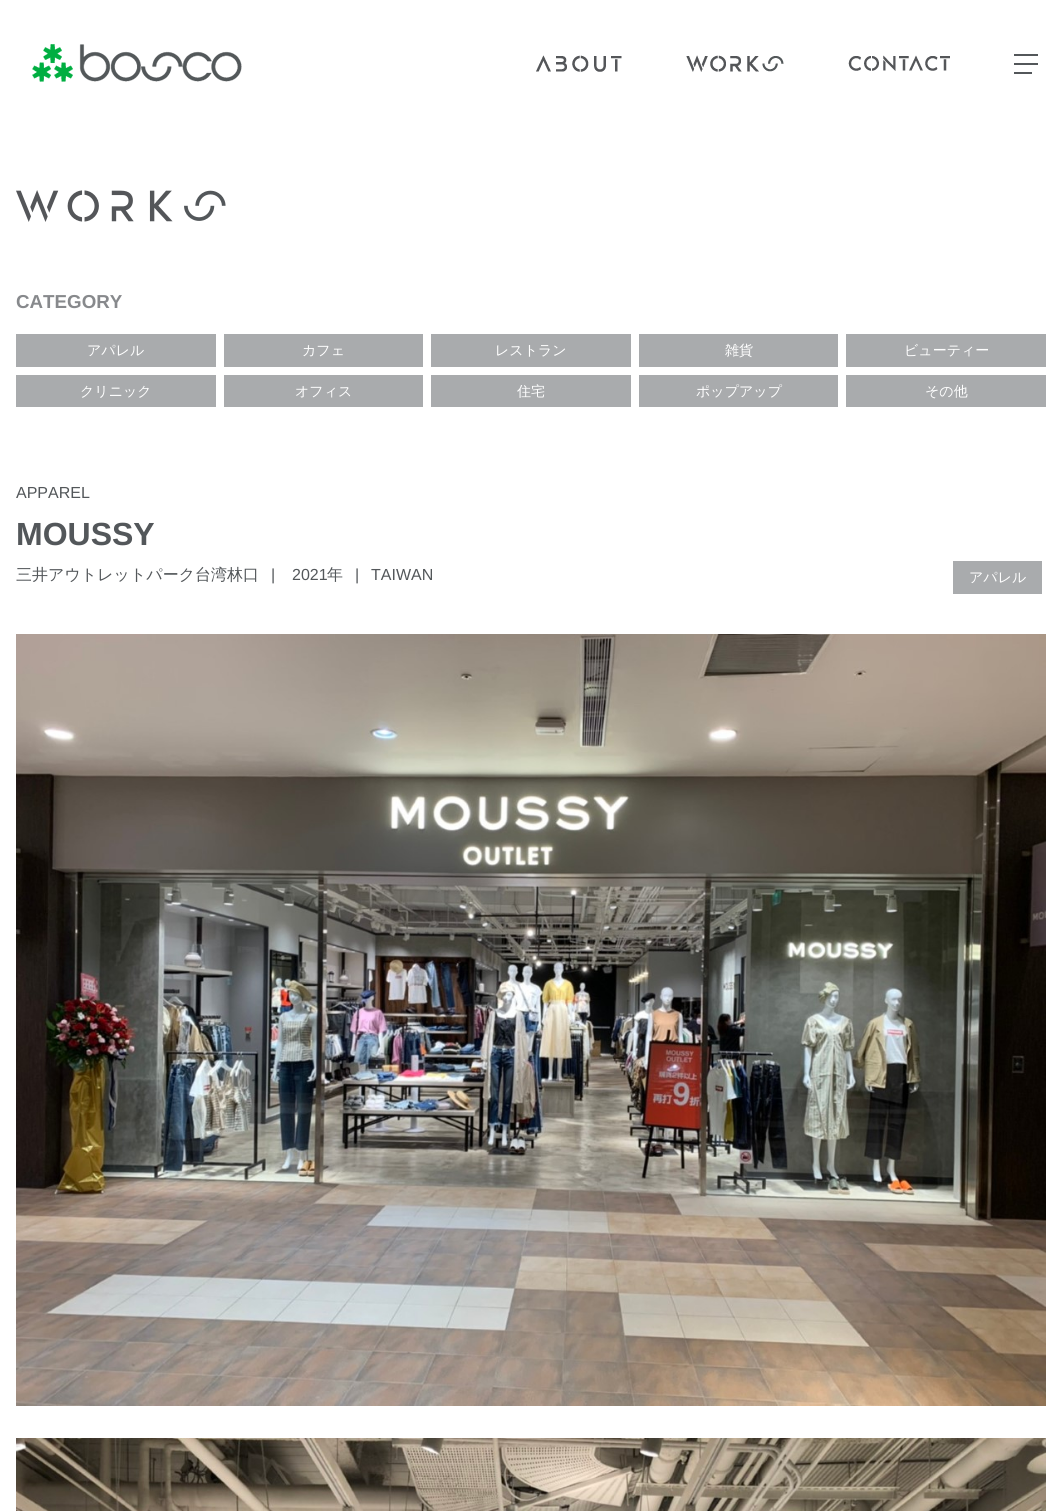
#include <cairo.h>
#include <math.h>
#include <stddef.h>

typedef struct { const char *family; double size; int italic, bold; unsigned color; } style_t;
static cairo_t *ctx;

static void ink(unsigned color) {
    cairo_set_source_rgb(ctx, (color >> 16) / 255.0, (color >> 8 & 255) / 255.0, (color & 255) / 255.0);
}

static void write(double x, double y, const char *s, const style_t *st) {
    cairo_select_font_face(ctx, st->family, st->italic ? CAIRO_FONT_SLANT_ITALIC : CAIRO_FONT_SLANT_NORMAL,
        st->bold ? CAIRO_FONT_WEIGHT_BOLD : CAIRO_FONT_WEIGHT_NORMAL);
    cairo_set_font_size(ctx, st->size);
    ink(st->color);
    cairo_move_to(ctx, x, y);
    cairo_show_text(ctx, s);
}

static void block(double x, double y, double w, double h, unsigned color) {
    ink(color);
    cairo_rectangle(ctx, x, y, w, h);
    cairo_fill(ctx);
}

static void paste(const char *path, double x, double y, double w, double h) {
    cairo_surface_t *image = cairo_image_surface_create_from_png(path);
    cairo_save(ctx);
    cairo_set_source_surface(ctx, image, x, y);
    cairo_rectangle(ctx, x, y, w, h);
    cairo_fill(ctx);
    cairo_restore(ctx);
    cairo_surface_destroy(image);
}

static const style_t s1 = {"Liberation Sans", 18.75, 0, 1, 0x87898c};
static const style_t s2 = {"WenQuanYi Zen Hei Medium", 14, 0, 0, 0xffffff};
static const style_t s3 = {"Liberation Sans", 16, 0, 0, 0x53575a};
static const style_t s4 = {"Liberation Sans", 32, 0, 1, 0x53575a};
static const style_t s5 = {"WenQuanYi Zen Hei Medium", 16, 0, 0, 0x53575a};

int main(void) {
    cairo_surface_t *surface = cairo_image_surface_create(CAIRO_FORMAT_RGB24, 1062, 1511);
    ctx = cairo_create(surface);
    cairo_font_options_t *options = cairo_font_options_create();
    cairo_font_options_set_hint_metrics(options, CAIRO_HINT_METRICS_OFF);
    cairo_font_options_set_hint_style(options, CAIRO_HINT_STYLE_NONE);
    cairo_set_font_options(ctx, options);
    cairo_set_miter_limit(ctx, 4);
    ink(0xffffff);
    cairo_paint(ctx);
    paste("pic1.png", 32, 44, 210, 38);
    paste("pic2.png", 536, 55, 86, 17);
    paste("pic3.png", 686, 55, 98, 17);
    paste("pic4.png", 848, 55, 102, 16);
    block(1014, 63, 24, 2, 0x53575a);
    block(1014, 54, 24, 2, 0x53575a);
    block(1014, 72, 18, 2, 0x53575a);
    paste("pic5.png", 16, 190, 210, 32);
    write(16, 308, "CATEGORY", &s1);
    block(16, 334, 200, 33, 0xa9abad);
    write(87, 355, "アパレル", &s2);
    block(224, 334, 199, 33, 0xa9abad);
    write(302, 355, "カフェ", &s2);
    block(431, 334, 200, 33, 0xa9abad);
    write(495, 355, "レストラン", &s2);
    block(639, 334, 199, 33, 0xa9abad);
    write(725, 355, "雑貨", &s2);
    block(846, 334, 200, 33, 0xa9abad);
    write(904, 355, "ビューティー", &s2);
    block(16, 375, 200, 32, 0xa9abad);
    write(80, 396, "クリニック", &s2);
    block(224, 375, 199, 32, 0xa9abad);
    write(295, 396, "オフィス", &s2);
    block(431, 375, 200, 32, 0xa9abad);
    write(517, 396, "住宅", &s2);
    block(639, 375, 199, 32, 0xa9abad);
    write(696, 396, "ポップアップ", &s2);
    block(846, 375, 200, 32, 0xa9abad);
    write(925, 396, "その他", &s2);
    write(16, 498, "APPAREL", &s3);
    write(16, 545, "MOUSSY", &s4);
    write(16, 580, "三井アウトレットパーク台湾林口", &s5);
    write(271, 580, "|", &s3);
    write(292, 580, "2021", &s3);
    write(327, 580, "年", &s5);
    write(355, 580, "|", &s3);
    write(371, 580, "TAIWAN", &s3);
    block(953, 561, 89, 33, 0xa9abad);
    write(969, 582, "アパレル", &s2);
    paste("pic6.png", 16, 634, 1030, 772);
    paste("pic7.png", 16, 1438, 1030, 73);
    cairo_surface_write_to_png(surface, "screenshot.png");
    cairo_font_options_destroy(options);
    cairo_destroy(ctx);
    cairo_surface_destroy(surface);
    return 0;
}
